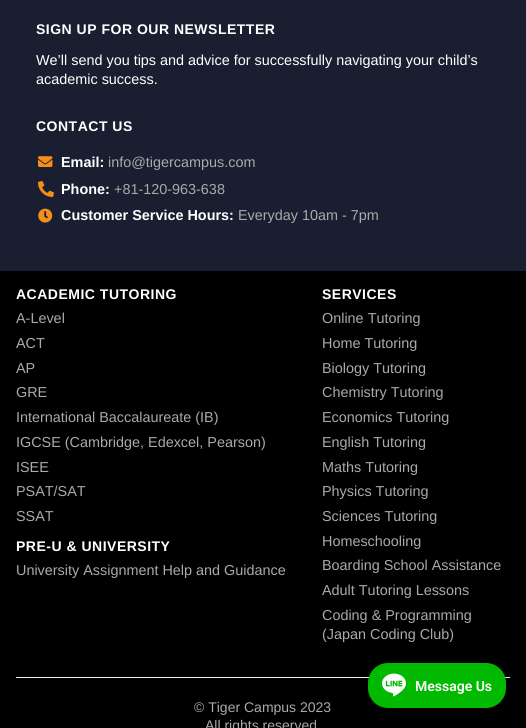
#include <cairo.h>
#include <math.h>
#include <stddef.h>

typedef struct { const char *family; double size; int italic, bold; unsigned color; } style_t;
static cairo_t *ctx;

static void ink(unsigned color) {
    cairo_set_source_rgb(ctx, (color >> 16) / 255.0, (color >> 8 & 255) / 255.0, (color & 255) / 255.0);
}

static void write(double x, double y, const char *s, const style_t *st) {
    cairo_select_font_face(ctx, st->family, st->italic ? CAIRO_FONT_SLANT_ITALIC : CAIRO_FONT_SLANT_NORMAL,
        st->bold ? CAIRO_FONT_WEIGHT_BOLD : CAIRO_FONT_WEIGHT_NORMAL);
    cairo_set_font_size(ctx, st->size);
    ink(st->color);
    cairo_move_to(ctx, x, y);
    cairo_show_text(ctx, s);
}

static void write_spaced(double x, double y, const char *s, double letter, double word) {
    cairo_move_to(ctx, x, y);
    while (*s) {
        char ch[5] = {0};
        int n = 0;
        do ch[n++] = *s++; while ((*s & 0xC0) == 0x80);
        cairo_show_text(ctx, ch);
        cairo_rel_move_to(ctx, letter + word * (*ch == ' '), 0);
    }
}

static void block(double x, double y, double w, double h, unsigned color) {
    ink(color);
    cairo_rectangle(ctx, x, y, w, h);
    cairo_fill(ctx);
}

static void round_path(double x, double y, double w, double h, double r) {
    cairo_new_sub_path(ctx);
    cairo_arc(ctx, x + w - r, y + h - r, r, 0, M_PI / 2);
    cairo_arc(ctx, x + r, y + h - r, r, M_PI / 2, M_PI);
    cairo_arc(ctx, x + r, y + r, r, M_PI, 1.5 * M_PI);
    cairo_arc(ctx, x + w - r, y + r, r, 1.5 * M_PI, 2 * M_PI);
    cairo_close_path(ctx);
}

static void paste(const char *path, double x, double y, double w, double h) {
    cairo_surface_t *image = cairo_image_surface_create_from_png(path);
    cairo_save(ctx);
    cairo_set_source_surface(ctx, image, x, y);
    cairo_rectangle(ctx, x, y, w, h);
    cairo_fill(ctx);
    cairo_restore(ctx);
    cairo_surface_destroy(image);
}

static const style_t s1 = {"Liberation Sans", 14.4, 0, 0, 0xffffff};
static const style_t s2 = {"Liberation Sans", 14.4, 0, 1, 0xffffff};
static const style_t s3 = {"Liberation Sans", 14.4, 0, 0, 0xaaaaaa};
static const style_t s4 = {"Liberation Sans", 14, 0, 0, 0xaaaaaa};
static const style_t s5 = {"Roboto SemiBold", 14, 0, 0, 0xffffff};

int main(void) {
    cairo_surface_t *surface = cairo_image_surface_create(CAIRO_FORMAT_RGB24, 526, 728);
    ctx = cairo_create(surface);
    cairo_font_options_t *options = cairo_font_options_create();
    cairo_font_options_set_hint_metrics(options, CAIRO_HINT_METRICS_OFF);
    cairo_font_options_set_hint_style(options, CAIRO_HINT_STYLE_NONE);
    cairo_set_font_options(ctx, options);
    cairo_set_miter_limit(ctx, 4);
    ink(0x191f30);
    cairo_paint(ctx);
    cairo_select_font_face(ctx, "Liberation Sans", CAIRO_FONT_SLANT_NORMAL, CAIRO_FONT_WEIGHT_BOLD);
    cairo_set_font_size(ctx, 14);
    ink(0xffffff);
    write_spaced(36, 34, "SIGN UP FOR OUR NEWSLETTER", 0.5, 0);
    write(36, 65, "We’ll send you tips and advice for successfully navigating your child’s", &s1);
    write(36, 84, "academic success.", &s1);
    cairo_select_font_face(ctx, "Liberation Sans", CAIRO_FONT_SLANT_NORMAL, CAIRO_FONT_WEIGHT_BOLD);
    cairo_set_font_size(ctx, 14);
    write_spaced(36, 131, "CONTACT US", 0.5, 0);
    paste("pic1.png", 38, 156, 15, 11);
    write(61, 167, "Email:", &s2);
    write(108, 167, "info@tigercampus.com", &s3);
    paste("pic2.png", 38, 181, 16, 16);
    write(61, 194, "Phone:", &s2);
    write(114, 194, "+81-120-963-638", &s3);
    paste("pic3.png", 38, 208, 15, 15);
    write(61, 220, "Customer Service Hours:", &s2);
    write(238, 220, "Everyday 10am - 7pm", &s3);
    block(0, 271, 526, 457, 0x000000);
    cairo_select_font_face(ctx, "Liberation Sans", CAIRO_FONT_SLANT_NORMAL, CAIRO_FONT_WEIGHT_BOLD);
    cairo_set_font_size(ctx, 14);
    ink(0xffffff);
    write_spaced(16, 299, "ACADEMIC TUTORING", 0.5, 0);
    write(16, 323, "A-Level", &s3);
    write(16, 348, "ACT", &s3);
    write(16, 373, "AP", &s3);
    write(16, 397, "GRE", &s3);
    write(16, 422, "International Baccalaureate (IB)", &s3);
    write(16, 447, "IGCSE (Cambridge, Edexcel, Pearson)", &s3);
    write(16, 472, "ISEE", &s3);
    write(16, 496, "PSAT/SAT", &s3);
    write(16, 521, "SSAT", &s3);
    cairo_select_font_face(ctx, "Liberation Sans", CAIRO_FONT_SLANT_NORMAL, CAIRO_FONT_WEIGHT_BOLD);
    cairo_set_font_size(ctx, 14);
    ink(0xffffff);
    write_spaced(16, 551, "PRE-U & UNIVERSITY", 0.5, 0);
    write(16, 575, "University Assignment Help and Guidance", &s3);
    cairo_select_font_face(ctx, "Liberation Sans", CAIRO_FONT_SLANT_NORMAL, CAIRO_FONT_WEIGHT_BOLD);
    cairo_set_font_size(ctx, 14);
    ink(0xffffff);
    write_spaced(322, 299, "SERVICES", 0.5, 0);
    write(322, 323, "Online Tutoring", &s3);
    write(322, 348, "Home Tutoring", &s3);
    write(322, 373, "Biology Tutoring", &s3);
    write(322, 397, "Chemistry Tutoring", &s3);
    write(322, 422, "Economics Tutoring", &s3);
    write(322, 447, "English Tutoring", &s3);
    write(322, 472, "Maths Tutoring", &s3);
    write(322, 496, "Physics Tutoring", &s3);
    write(322, 521, "Sciences Tutoring", &s3);
    write(322, 546, "Homeschooling", &s3);
    write(322, 570, "Boarding School Assistance", &s3);
    write(322, 595, "Adult Tutoring Lessons", &s3);
    write(322, 620, "Coding & Programming", &s3);
    write(322, 639, "(Japan Coding Club)", &s3);
    block(16, 677, 494, 1, 0xeeeeee);
    write(194, 712, "© Tiger Campus 2023", &s4);
    write(205, 730, "All rights reserved", &s4);
    ink(0x00b900);
    round_path(368, 663, 138, 45, 20);
    cairo_fill(ctx);
    paste("pic4.png", 382, 673, 24, 24);
    write(415, 691, "Message Us", &s5);
    cairo_surface_write_to_png(surface, "screenshot.png");
    cairo_font_options_destroy(options);
    cairo_destroy(ctx);
    cairo_surface_destroy(surface);
    return 0;
}
